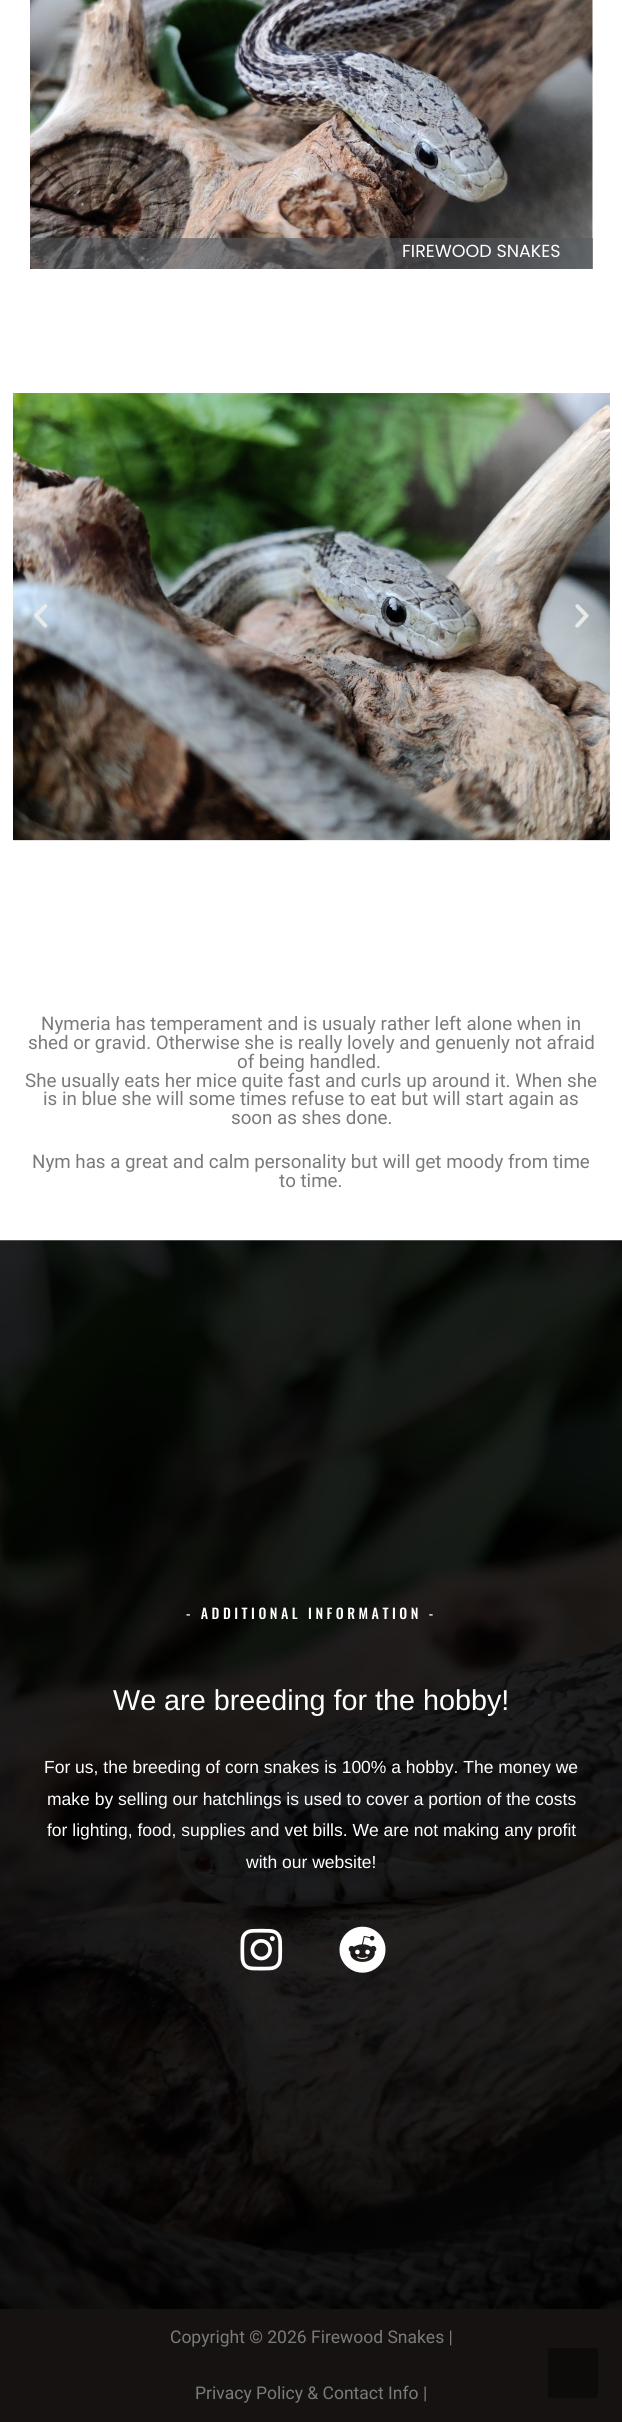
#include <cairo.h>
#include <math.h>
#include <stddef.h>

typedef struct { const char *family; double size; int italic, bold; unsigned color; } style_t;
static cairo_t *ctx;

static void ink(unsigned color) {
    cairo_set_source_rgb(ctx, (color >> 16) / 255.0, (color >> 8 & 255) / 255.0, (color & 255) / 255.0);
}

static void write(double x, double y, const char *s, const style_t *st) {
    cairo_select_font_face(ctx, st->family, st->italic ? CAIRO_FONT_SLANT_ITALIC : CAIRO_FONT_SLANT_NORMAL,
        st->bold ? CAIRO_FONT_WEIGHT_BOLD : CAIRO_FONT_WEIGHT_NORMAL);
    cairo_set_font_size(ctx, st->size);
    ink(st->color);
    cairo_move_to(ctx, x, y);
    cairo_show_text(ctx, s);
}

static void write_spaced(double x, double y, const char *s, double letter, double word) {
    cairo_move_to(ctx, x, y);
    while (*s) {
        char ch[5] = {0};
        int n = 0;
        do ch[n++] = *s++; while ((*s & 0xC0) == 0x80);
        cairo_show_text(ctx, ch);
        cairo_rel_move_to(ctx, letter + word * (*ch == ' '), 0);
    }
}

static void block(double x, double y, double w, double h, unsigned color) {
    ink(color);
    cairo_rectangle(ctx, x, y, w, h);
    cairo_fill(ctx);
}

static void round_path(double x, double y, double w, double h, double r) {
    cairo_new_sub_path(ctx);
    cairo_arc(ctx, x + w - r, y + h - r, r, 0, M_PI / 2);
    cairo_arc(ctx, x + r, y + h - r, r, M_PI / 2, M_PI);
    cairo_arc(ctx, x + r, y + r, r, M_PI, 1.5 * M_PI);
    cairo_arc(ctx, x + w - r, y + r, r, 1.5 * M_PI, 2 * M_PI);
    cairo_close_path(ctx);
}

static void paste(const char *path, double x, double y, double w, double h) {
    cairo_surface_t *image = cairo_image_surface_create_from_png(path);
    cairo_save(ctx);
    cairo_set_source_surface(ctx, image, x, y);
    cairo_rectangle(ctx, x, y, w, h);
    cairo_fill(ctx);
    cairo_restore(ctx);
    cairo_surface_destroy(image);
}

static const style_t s1 = {"Poppins", 17.5, 0, 0, 0xffffff};
static const style_t s2 = {"Roboto", 18.75, 0, 0, 0x7a7a7a};
static const style_t s3 = {"Liberation Sans", 28.75, 0, 0, 0xffffff};
static const style_t s4 = {"Liberation Sans", 17.5, 0, 0, 0xffffff};
static const style_t s5 = {"Roboto", 17.5, 0, 0, 0x7a7a7a};

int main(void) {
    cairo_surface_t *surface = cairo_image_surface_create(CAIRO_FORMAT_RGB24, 622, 2422);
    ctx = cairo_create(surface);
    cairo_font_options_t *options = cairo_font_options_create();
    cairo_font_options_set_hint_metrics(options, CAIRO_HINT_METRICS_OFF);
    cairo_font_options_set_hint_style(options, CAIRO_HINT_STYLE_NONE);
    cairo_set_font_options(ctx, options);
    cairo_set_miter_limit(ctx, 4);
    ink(0xffffff);
    cairo_paint(ctx);
    paste("pic1.png", 30, 0, 563, 269);
    cairo_set_source_rgba(ctx, 0.329, 0.349, 0.373, 0.6);
    cairo_rectangle(ctx, 30, 238, 563, 31);
    cairo_fill(ctx);
    write(402, 257, "FIREWOOD SNAKES", &s1);
    paste("pic2.png", 13, 393, 597, 448);
    paste("pic3.png", 34, 604, 14, 24);
    paste("pic4.png", 575, 604, 14, 24);
    write(41, 1030, "Nymeria has temperament and is usualy rather left alone when in", &s2);
    write(28, 1049, "shed or gravid. Otherwise she is really lovely and genuenly not afraid", &s2);
    write(237, 1068, "of being handled.", &s2);
    write(25, 1087, "She usually eats her mice quite fast and curls up around it. When she", &s2);
    write(43, 1105, "is in blue she will some times refuse to eat but will start again as", &s2);
    write(231, 1124, "soon as shes done.", &s2);
    write(32, 1168, "Nym has a great and calm personality but will get moody from time", &s2);
    write(279, 1187, "to time.", &s2);
    paste("pic5.png", 0, 1240, 622, 1069);
    cairo_select_font_face(ctx, "Oswald Medium", CAIRO_FONT_SLANT_NORMAL, CAIRO_FONT_WEIGHT_NORMAL);
    cairo_set_font_size(ctx, 14);
    ink(0xffffff);
    write_spaced(186, 1619, "- ADDITIONAL INFORMATION -", 3.5, 0);
    write(113, 1710, "We are breeding for the hobby!", &s3);
    write(44, 1773, "For us, the breeding of corn snakes is 100% a hobby. The money we", &s4);
    write(47, 1805, "make by selling our hatchlings is used to cover a portion of the costs", &s4);
    write(47, 1836, "for lighting, food, supplies and vet bills. We are not making any profit", &s4);
    write(246, 1868, "with our website!", &s4);
    paste("pic6.png", 240, 1928, 43, 43);
    paste("pic7.png", 339, 1926, 47, 47);
    block(0, 2309, 622, 113, 0x151211);
    write(170, 2343, "Copyright © 2026 Firewood Snakes |", &s5);
    write(195, 2399, "Privacy Policy & Contact Info |", &s5);
    ink(0x0d0b0a);
    round_path(548, 2348, 50, 50, 2.5);
    cairo_fill(ctx);
    cairo_surface_write_to_png(surface, "screenshot.png");
    cairo_font_options_destroy(options);
    cairo_destroy(ctx);
    cairo_surface_destroy(surface);
    return 0;
}
